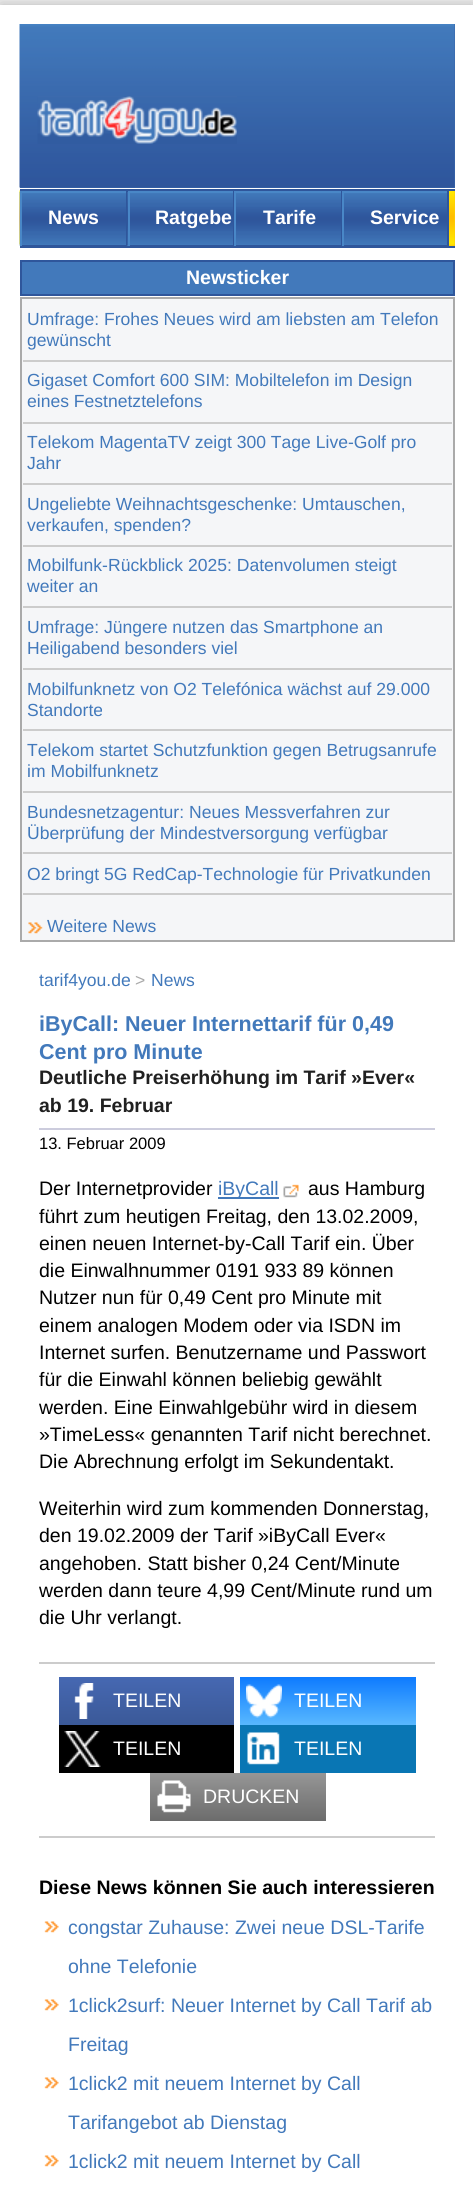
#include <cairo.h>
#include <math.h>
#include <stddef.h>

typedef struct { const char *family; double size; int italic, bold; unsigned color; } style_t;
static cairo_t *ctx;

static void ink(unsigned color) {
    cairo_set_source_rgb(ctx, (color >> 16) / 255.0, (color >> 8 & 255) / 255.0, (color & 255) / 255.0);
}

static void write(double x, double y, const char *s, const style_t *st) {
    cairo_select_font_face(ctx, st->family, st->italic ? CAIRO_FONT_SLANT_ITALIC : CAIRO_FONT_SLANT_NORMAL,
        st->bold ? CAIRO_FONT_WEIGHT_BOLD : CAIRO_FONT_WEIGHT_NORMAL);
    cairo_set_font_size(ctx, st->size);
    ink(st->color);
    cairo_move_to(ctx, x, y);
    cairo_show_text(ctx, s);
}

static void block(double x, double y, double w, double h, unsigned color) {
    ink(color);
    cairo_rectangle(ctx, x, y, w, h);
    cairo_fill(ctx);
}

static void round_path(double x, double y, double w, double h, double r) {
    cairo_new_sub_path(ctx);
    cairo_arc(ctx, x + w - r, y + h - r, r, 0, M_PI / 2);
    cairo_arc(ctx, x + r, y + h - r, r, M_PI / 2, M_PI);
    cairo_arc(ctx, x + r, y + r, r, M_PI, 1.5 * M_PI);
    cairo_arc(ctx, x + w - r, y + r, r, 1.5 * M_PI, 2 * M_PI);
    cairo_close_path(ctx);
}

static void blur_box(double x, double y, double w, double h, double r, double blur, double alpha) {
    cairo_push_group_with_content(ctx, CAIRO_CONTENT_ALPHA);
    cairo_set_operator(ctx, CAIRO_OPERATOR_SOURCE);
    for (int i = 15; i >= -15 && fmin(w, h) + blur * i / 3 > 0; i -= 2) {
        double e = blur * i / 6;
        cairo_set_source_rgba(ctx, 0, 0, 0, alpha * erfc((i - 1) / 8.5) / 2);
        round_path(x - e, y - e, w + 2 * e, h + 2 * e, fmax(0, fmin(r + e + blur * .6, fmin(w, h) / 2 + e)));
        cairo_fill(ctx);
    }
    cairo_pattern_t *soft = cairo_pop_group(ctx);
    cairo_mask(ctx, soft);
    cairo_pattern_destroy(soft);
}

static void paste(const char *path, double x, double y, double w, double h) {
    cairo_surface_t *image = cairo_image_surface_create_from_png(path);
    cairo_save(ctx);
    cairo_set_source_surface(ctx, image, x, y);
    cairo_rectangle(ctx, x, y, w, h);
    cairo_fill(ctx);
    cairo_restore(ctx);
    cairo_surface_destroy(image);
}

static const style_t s1 = {"Liberation Sans", 19.5, 0, 1, 0xffffff};
static const style_t s2 = {"Liberation Sans", 17.55, 0, 0, 0x4279bb};
static const style_t s3 = {"Liberation Sans", 17.55, 0, 0, 0xaaaaaa};
static const style_t s4 = {"Liberation Sans", 21.5, 0, 1, 0x4279bb};
static const style_t s5 = {"Liberation Sans", 19.5, 0, 1, 0x202020};
static const style_t s6 = {"Liberation Sans", 16.5, 0, 0, 0x000000};
static const style_t s7 = {"Liberation Sans", 19.5, 0, 0, 0x000000};
static const style_t s8 = {"Liberation Sans", 19.5, 0, 0, 0x4279bb};
static const style_t s9 = {"Liberation Sans", 19.5, 0, 0, 0xffffff};
static const style_t s10 = {"Liberation Sans", 19.5, 0, 1, 0x000000};

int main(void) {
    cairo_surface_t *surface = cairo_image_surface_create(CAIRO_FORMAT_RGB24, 473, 2200);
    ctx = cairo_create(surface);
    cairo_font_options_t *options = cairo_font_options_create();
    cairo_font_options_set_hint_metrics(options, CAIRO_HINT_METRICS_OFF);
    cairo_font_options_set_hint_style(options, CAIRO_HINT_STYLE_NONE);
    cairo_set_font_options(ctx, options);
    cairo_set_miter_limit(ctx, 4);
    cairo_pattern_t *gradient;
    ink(0xf0f0f0);
    cairo_paint(ctx);
    ink(0x7d7d7d);
    blur_box(0, 5, 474, 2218, 0, 7.5, 0.5);
    block(0, 5, 473, 2195, 0xffffff);
    block(20, 24, 435, 164, 0x3867ab);
    paste("pic1.png", 19, 24, 436, 164);
    paste("pic2.png", 37, 96, 200, 48);
    block(449, 191, 6, 55, 0xffd200);
    paste("pic3.png", 19, 189, 436, 56);
    block(20, 189, 435, 2, 0x2f569b);
    block(20, 246, 435, 2, 0x2f569b);
    paste("pic4.png", 19, 192, 107, 54);
    block(20, 191, 108, 2, 0x4987c7);
    block(126, 191, 2, 55, 0x2f569b);
    block(20, 245, 108, 1, 0x2f569b);
    block(20, 191, 2, 55, 0x4987c7);
    write(48, 224, "News", &s1);
    paste("pic5.png", 127, 192, 106, 54);
    block(128, 191, 321, 2, 0x4987c7);
    block(233, 191, 1, 55, 0x2f569b);
    block(128, 245, 106, 1, 0x2f569b);
    block(128, 191, 2, 55, 0x4987c7);
    write(155, 224, "Ratgebe", &s1);
    paste("pic6.png", 236, 193, 105, 52);
    block(341, 191, 1, 55, 0x2f569b);
    block(234, 245, 108, 1, 0x2f569b);
    block(234, 191, 2, 55, 0x4987c7);
    write(263, 224, "Tarife", &s1);
    paste("pic7.png", 344, 193, 103, 52);
    block(447, 191, 2, 55, 0x2f569b);
    block(342, 245, 107, 1, 0x2f569b);
    block(342, 191, 2, 55, 0x4987c7);
    write(370, 224, "Service", &s1);
    ink(0x4279bb);
    cairo_rectangle(ctx, 21, 261, 433, 34);
    cairo_fill_preserve(ctx);
    ink(0x2f569b);
    cairo_stroke(ctx);
    write(186, 284, "Newsticker", &s1);
    ink(0xf5f6f8);
    cairo_rectangle(ctx, 21, 298, 433, 643);
    cairo_fill_preserve(ctx);
    ink(0xaaaaaa);
    cairo_stroke(ctx);
    block(23, 360, 429, 2, 0xcccccc);
    write(27, 325, "Umfrage: Frohes Neues wird am liebsten am Telefon", &s2);
    write(27, 346, "gewünscht", &s2);
    block(23, 422, 429, 2, 0xcccccc);
    write(27, 386, "Gigaset Comfort 600 SIM: Mobiltelefon im Design", &s2);
    write(27, 407, "eines Festnetztelefons", &s2);
    block(23, 483, 429, 2, 0xcccccc);
    write(27, 448, "Telekom MagentaTV zeigt 300 Tage Live-Golf pro", &s2);
    write(27, 469, "Jahr", &s2);
    block(23, 545, 429, 2, 0xcccccc);
    write(27, 510, "Ungeliebte Weihnachtsgeschenke: Umtauschen,", &s2);
    write(27, 531, "verkaufen, spenden?", &s2);
    block(23, 606, 429, 2, 0xcccccc);
    write(27, 571, "Mobilfunk-Rückblick 2025: Datenvolumen steigt", &s2);
    write(27, 592, "weiter an", &s2);
    block(23, 668, 429, 2, 0xcccccc);
    write(27, 633, "Umfrage: Jüngere nutzen das Smartphone an", &s2);
    write(27, 654, "Heiligabend besonders viel", &s2);
    block(23, 729, 429, 2, 0xcccccc);
    write(27, 695, "Mobilfunknetz von O2 Telefónica wächst auf 29.000", &s2);
    write(27, 716, "Standorte", &s2);
    block(23, 791, 429, 2, 0xcccccc);
    write(27, 756, "Telekom startet Schutzfunktion gegen Betrugsanrufe", &s2);
    write(27, 777, "im Mobilfunknetz", &s2);
    block(23, 852, 429, 2, 0xcccccc);
    write(27, 818, "Bundesnetzagentur: Neues Messverfahren zur", &s2);
    write(27, 839, "Überprüfung der Mindestversorgung verfügbar", &s2);
    block(23, 893, 429, 2, 0xcccccc);
    write(27, 880, "O2 bringt 5G RedCap-Technologie für Privatkunden", &s2);
    paste("pic8.png", 28, 922, 15, 12);
    write(47, 932, "Weitere News", &s2);
    write(39, 986, "tarif4you.de", &s2);
    write(135, 986, ">", &s3);
    write(151, 986, "News", &s2);
    write(39, 1031, "iByCall: Neuer Internettarif für 0,49", &s4);
    write(39, 1059, "Cent pro Minute", &s4);
    write(39, 1084, "Deutliche Preiserhöhung im Tarif »Ever«", &s5);
    write(39, 1112, "ab 19. Februar", &s5);
    block(39, 1128, 396, 2, 0xccccdd);
    write(39, 1149, "13. Februar 2009", &s6);
    write(39, 1195, "Der Internetprovider", &s7);
    block(218, 1197, 61, 2, 0x4279bb);
    write(218, 1195, "iByCall", &s8);
    paste("pic9.png", 283, 1184, 16, 14);
    write(308, 1195, "aus Hamburg", &s7);
    write(39, 1223, "führt zum heutigen Freitag, den 13.02.2009,", &s7);
    write(39, 1250, "einen neuen Internet-by-Call Tarif ein. Über", &s7);
    write(39, 1277, "die Einwalhnummer 0191 933 89 können", &s7);
    write(39, 1304, "Nutzer nun für 0,49 Cent pro Minute mit", &s7);
    write(39, 1332, "einem analogen Modem oder via ISDN im", &s7);
    write(39, 1359, "Internet surfen. Benutzername und Passwort", &s7);
    write(39, 1386, "für die Einwahl können beliebig gewählt", &s7);
    write(39, 1414, "werden. Eine Einwahlgebühr wird in diesem", &s7);
    write(39, 1441, "»TimeLess« genannten Tarif nicht berechnet.", &s7);
    write(39, 1468, "Die Abrechnung erfolgt im Sekundentakt.", &s7);
    write(39, 1515, "Weiterhin wird zum kommenden Donnerstag,", &s7);
    write(39, 1542, "den 19.02.2009 der Tarif »iByCall Ever«", &s7);
    write(39, 1570, "angehoben. Statt bisher 0,24 Cent/Minute", &s7);
    write(39, 1597, "werden dann teure 4,99 Cent/Minute rund um", &s7);
    write(39, 1624, "die Uhr verlangt.", &s7);
    block(39, 1662, 396, 2, 0xcccccc);
    block(39, 1836, 396, 2, 0xcccccc);
    gradient = cairo_pattern_create_linear(146, 1677, 146, 1725);
    cairo_pattern_add_color_stop_rgba(gradient, 0, 0.275, 0.408, 0.698, 1);
    cairo_pattern_add_color_stop_rgba(gradient, 1, 0.231, 0.349, 0.596, 1);
    cairo_set_source(ctx, gradient);
    cairo_pattern_destroy(gradient);
    cairo_rectangle(ctx, 59, 1677, 175, 48);
    cairo_fill(ctx);
    paste("pic10.png", 74, 1683, 20, 36);
    write(113, 1707, "TEILEN", &s9);
    gradient = cairo_pattern_create_linear(328, 1677, 328, 1725);
    cairo_pattern_add_color_stop_rgba(gradient, 0, 0.055, 0.482, 1, 1);
    cairo_pattern_add_color_stop_rgba(gradient, 1, 0.345, 0.722, 1, 1);
    cairo_set_source(ctx, gradient);
    cairo_pattern_destroy(gradient);
    cairo_rectangle(ctx, 240, 1677, 176, 48);
    cairo_fill(ctx);
    paste("pic11.png", 246, 1684, 36, 34);
    write(294, 1707, "TEILEN", &s9);
    block(59, 1725, 175, 48, 0x000000);
    paste("pic12.png", 64, 1731, 37, 36);
    write(113, 1755, "TEILEN", &s9);
    block(240, 1725, 176, 48, 0x0976b4);
    paste("pic13.png", 247, 1732, 33, 33);
    write(294, 1755, "TEILEN", &s9);
    gradient = cairo_pattern_create_linear(238, 1773, 238, 1821);
    cairo_pattern_add_color_stop_rgba(gradient, 0, 0.588, 0.588, 0.588, 1);
    cairo_pattern_add_color_stop_rgba(gradient, 1, 0.424, 0.424, 0.424, 1);
    cairo_set_source(ctx, gradient);
    cairo_pattern_destroy(gradient);
    cairo_rectangle(ctx, 150, 1773, 176, 48);
    cairo_fill(ctx);
    paste("pic14.png", 157, 1780, 34, 33);
    write(203, 1803, "DRUCKEN", &s9);
    write(39, 1894, "Diese News können Sie auch interessieren", &s10);
    paste("pic15.png", 44, 1921, 15, 12);
    write(68, 1934, "congstar Zuhause: Zwei neue DSL-Tarife", &s8);
    write(68, 1973, "ohne Telefonie", &s8);
    paste("pic15.png", 44, 1999, 15, 12);
    write(68, 2012, "1click2surf: Neuer Internet by Call Tarif ab", &s8);
    write(68, 2051, "Freitag", &s8);
    paste("pic15.png", 44, 2077, 15, 12);
    write(68, 2090, "1click2 mit neuem Internet by Call", &s8);
    write(68, 2129, "Tarifangebot ab Dienstag", &s8);
    paste("pic15.png", 44, 2155, 15, 12);
    write(68, 2168, "1click2 mit neuem Internet by Call", &s8);
    cairo_surface_write_to_png(surface, "screenshot.png");
    cairo_font_options_destroy(options);
    cairo_destroy(ctx);
    cairo_surface_destroy(surface);
    return 0;
}
